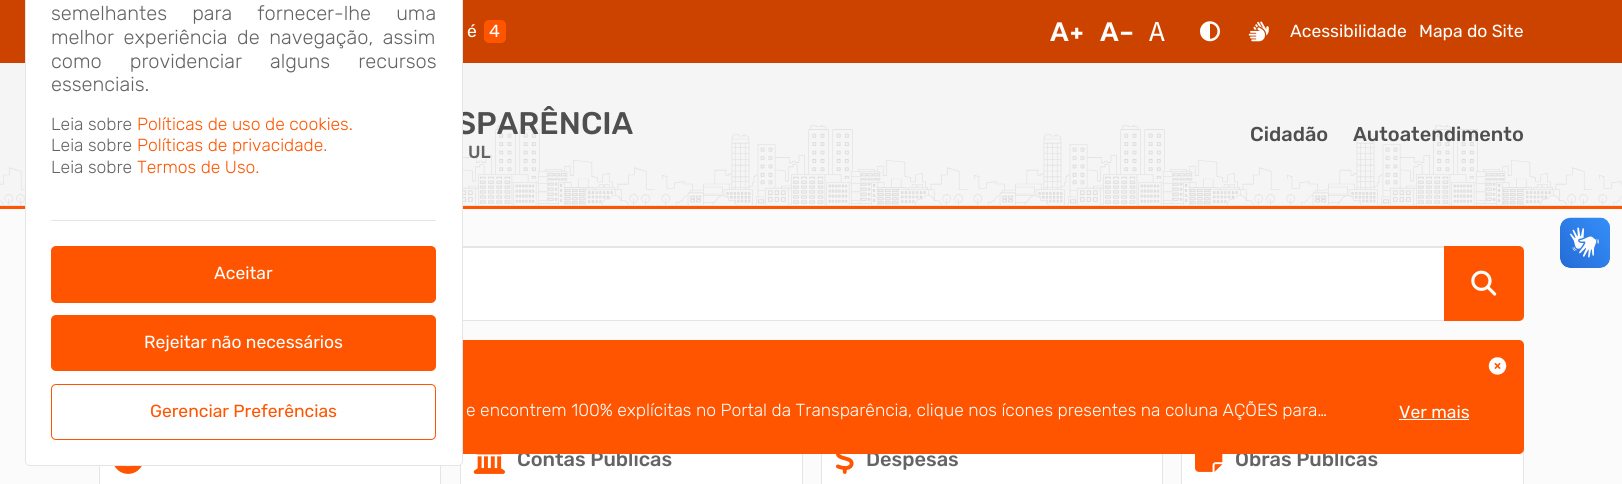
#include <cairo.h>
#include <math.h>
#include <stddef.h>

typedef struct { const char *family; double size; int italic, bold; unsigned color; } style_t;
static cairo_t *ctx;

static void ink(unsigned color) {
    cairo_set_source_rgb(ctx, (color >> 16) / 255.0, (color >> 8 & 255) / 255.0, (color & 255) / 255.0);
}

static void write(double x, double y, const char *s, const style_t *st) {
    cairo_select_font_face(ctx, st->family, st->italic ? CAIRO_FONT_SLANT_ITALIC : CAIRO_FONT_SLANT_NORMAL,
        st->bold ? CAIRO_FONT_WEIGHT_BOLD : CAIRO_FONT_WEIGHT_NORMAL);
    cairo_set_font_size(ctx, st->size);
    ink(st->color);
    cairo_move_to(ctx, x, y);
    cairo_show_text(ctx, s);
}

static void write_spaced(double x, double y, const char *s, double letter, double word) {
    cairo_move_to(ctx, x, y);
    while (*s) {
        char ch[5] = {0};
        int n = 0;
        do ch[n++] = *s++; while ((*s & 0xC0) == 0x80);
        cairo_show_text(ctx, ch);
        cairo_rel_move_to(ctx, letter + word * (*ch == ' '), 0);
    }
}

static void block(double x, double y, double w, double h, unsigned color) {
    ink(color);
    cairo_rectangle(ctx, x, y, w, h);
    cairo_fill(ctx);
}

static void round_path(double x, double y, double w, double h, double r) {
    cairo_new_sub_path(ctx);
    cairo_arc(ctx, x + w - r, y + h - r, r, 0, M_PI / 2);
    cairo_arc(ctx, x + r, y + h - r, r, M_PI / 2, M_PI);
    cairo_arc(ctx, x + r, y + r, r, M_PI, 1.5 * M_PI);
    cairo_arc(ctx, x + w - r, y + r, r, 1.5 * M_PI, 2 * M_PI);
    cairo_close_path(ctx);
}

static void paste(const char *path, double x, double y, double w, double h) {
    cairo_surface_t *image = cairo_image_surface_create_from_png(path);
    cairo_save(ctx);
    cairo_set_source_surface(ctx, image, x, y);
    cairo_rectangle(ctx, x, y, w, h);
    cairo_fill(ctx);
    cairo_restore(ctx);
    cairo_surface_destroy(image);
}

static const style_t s1 = {"Rubik Medium", 20, 0, 0, 0x646464};
static const style_t s2 = {"Rubik Medium", 31.25, 0, 0, 0x4f4f50};
static const style_t s3 = {"Rubik Light", 20, 0, 0, 0x646464};
static const style_t s4 = {"Rubik Light", 17.5, 0, 0, 0x646464};
static const style_t s5 = {"Rubik Light", 17.5, 0, 0, 0xff5500};
static const style_t s6 = {"Rubik", 17.5, 0, 0, 0xffffff};
static const style_t s7 = {"Rubik", 17.5, 0, 0, 0xff5500};
static const style_t s8 = {"Rubik Light", 17.5, 0, 0, 0xffffff};
static const style_t s9 = {"Rubik Medium", 17.5, 0, 0, 0x646464};
static const style_t s10 = {"Rubik Medium", 20, 0, 0, 0x4f4f50};

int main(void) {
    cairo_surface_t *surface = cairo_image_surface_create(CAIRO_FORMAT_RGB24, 1622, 484);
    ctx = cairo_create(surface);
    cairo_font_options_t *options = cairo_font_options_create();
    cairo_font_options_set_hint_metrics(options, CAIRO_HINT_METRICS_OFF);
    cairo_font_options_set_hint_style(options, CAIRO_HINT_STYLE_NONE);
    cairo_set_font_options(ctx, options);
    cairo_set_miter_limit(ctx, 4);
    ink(0xfbfbfb);
    cairo_paint(ctx);
    block(100, 466, 340, 18, 0xffffff);
    cairo_rectangle(ctx, 99.5, 430.5, 341, 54);
    ink(0xe5e5e5);
    cairo_set_line_width(ctx, 1);
    cairo_stroke(ctx);
    block(461, 454, 341, 30, 0xffffff);
    cairo_rectangle(ctx, 460.5, 430.5, 342, 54);
    ink(0xe5e5e5);
    cairo_stroke(ctx);
    write(517, 466, "Contas Públicas", &s1);
    block(822, 454, 340, 30, 0xffffff);
    cairo_rectangle(ctx, 821.5, 430.5, 341, 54);
    ink(0xe5e5e5);
    cairo_stroke(ctx);
    write(866, 466, "Despesas", &s1);
    block(1182, 452, 341, 32, 0xffffff);
    cairo_rectangle(ctx, 1181.5, 430.5, 342, 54);
    ink(0xe5e5e5);
    cairo_stroke(ctx);
    write(1235, 466, "Obras Públicas", &s1);
    ink(0xff5500);
    round_path(99, 340, 1425, 114, 5);
    cairo_fill(ctx);
    block(0, 206, 1622, 3, 0xff5500);
    block(0, 0, 1622, 63, 0xcc4300);
    block(0, 63, 1622, 143, 0xf5f5f5);
    paste("pic13.png", 0, 125, 1622, 82);
    write(456, 134, "SPARÊNCIA", &s2);
    block(463, 248, 981, 72, 0xffffff);
    ink(0xe5e5e5);
    cairo_set_fill_rule(ctx, CAIRO_FILL_RULE_EVEN_ODD);
    cairo_new_path(ctx);
    cairo_move_to(ctx, 104, 246);
    cairo_line_to(ctx, 1444, 246);
    cairo_line_to(ctx, 1444, 321);
    cairo_line_to(ctx, 104, 321);
    cairo_curve_to(ctx, 101, 321, 99, 319, 99, 316);
    cairo_line_to(ctx, 99, 251);
    cairo_curve_to(ctx, 99, 248, 101, 246, 104, 246);
    cairo_close_path(ctx);
    cairo_move_to(ctx, 104, 248);
    cairo_line_to(ctx, 1444, 248);
    cairo_line_to(ctx, 1444, 320);
    cairo_line_to(ctx, 104, 320);
    cairo_curve_to(ctx, 102, 320, 100, 318, 100, 316);
    cairo_line_to(ctx, 100, 251);
    cairo_curve_to(ctx, 100, 249, 102, 248, 104, 248);
    cairo_close_path(ctx);
    cairo_fill(ctx);
    ink(0xffffff);
    round_path(25.5, -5.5, 437, 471, 4.5);
    cairo_fill_preserve(ctx);
    ink(0xe5e5e5);
    cairo_stroke(ctx);
    cairo_select_font_face(ctx, "Rubik Light", CAIRO_FONT_SLANT_NORMAL, CAIRO_FONT_WEIGHT_NORMAL);
    cairo_set_font_size(ctx, 20);
    ink(0x646464);
    write_spaced(51, 20, "semelhantes para fornecer-lhe uma", 0, 20);
    write_spaced(51, 44, "melhor experiência de navegação, assim", 0, 4.5);
    write_spaced(51, 68, "como providenciar alguns recursos", 0, 23);
    write(51, 91, "essenciais.", &s3);
    write(51, 130, "Leia sobre", &s4);
    write(137, 130, "Políticas de uso de cookies.", &s5);
    write(51, 151, "Leia sobre", &s4);
    write(137, 151, "Políticas de privacidade.", &s5);
    write(51, 173, "Leia sobre", &s4);
    write(137, 173, "Termos de Uso.", &s5);
    block(51, 220, 385, 1, 0xe5e5e5);
    ink(0xff5500);
    round_path(51, 246, 385, 57, 5);
    cairo_fill(ctx);
    write(214, 279, "Aceitar", &s6);
    ink(0xff5500);
    round_path(51, 315, 385, 56, 5);
    cairo_fill(ctx);
    write(144, 348, "Rejeitar não necessários", &s6);
    round_path(51.5, 384.5, 384, 55, 4.5);
    ink(0xff5500);
    cairo_stroke(ctx);
    write(150, 417, "Gerenciar Preferências", &s7);
    paste("pic1.png", 1560, 217, 50, 51);
    paste("pic2.png", 1560, 218, 50, 50);
    paste("pic3.png", 1488, 357, 19, 18);
    write(466, 416, "e encontrem 100% explícitas no Portal da Transparência, clique nos ícones presentes na coluna AÇÕES para…", &s8);
    write(1399, 418, "Ver mais", &s6);
    block(1399, 419, 70, 1, 0xffffff);
    paste("pic4.png", 114, 466, 28, 8);
    paste("pic5.png", 473, 454, 32, 20);
    paste("pic6.png", 836, 454, 18, 20);
    paste("pic7.png", 1195, 454, 28, 18);
    write(467, 37, "é", &s6);
    ink(0xff5500);
    round_path(484, 20, 22, 23, 5);
    cairo_fill(ctx);
    write(489, 37, "4", &s6);
    paste("pic8.png", 1050, 22, 33, 19);
    paste("pic9.png", 1100, 22, 33, 19);
    paste("pic10.png", 1149, 22, 16, 19);
    paste("pic11.png", 1200, 21, 20, 21);
    paste("pic12.png", 1248, 21, 21, 21);
    write(1290, 37, "Acessibilidade", &s6);
    write(1419, 37, "Mapa do Site", &s6);
    write(468, 158, "UL", &s9);
    write(1250, 141, "Cidadão", &s10);
    write(1353, 141, "Autoatendimento", &s10);
    ink(0xff5500);
    cairo_new_path(ctx);
    cairo_move_to(ctx, 1445.5, 247.5);
    cairo_line_to(ctx, 1519, 247.5);
    cairo_curve_to(ctx, 1521, 247.5, 1522.5, 249, 1522.5, 251);
    cairo_line_to(ctx, 1522.5, 316);
    cairo_curve_to(ctx, 1522.5, 318, 1521, 319.5, 1519, 319.5);
    cairo_line_to(ctx, 1445.5, 319.5);
    cairo_close_path(ctx);
    cairo_fill_preserve(ctx);
    cairo_set_line_width(ctx, 3);
    cairo_stroke(ctx);
    paste("pic14.png", 1471, 270, 26, 26);
    cairo_surface_write_to_png(surface, "screenshot.png");
    cairo_font_options_destroy(options);
    cairo_destroy(ctx);
    cairo_surface_destroy(surface);
    return 0;
}
